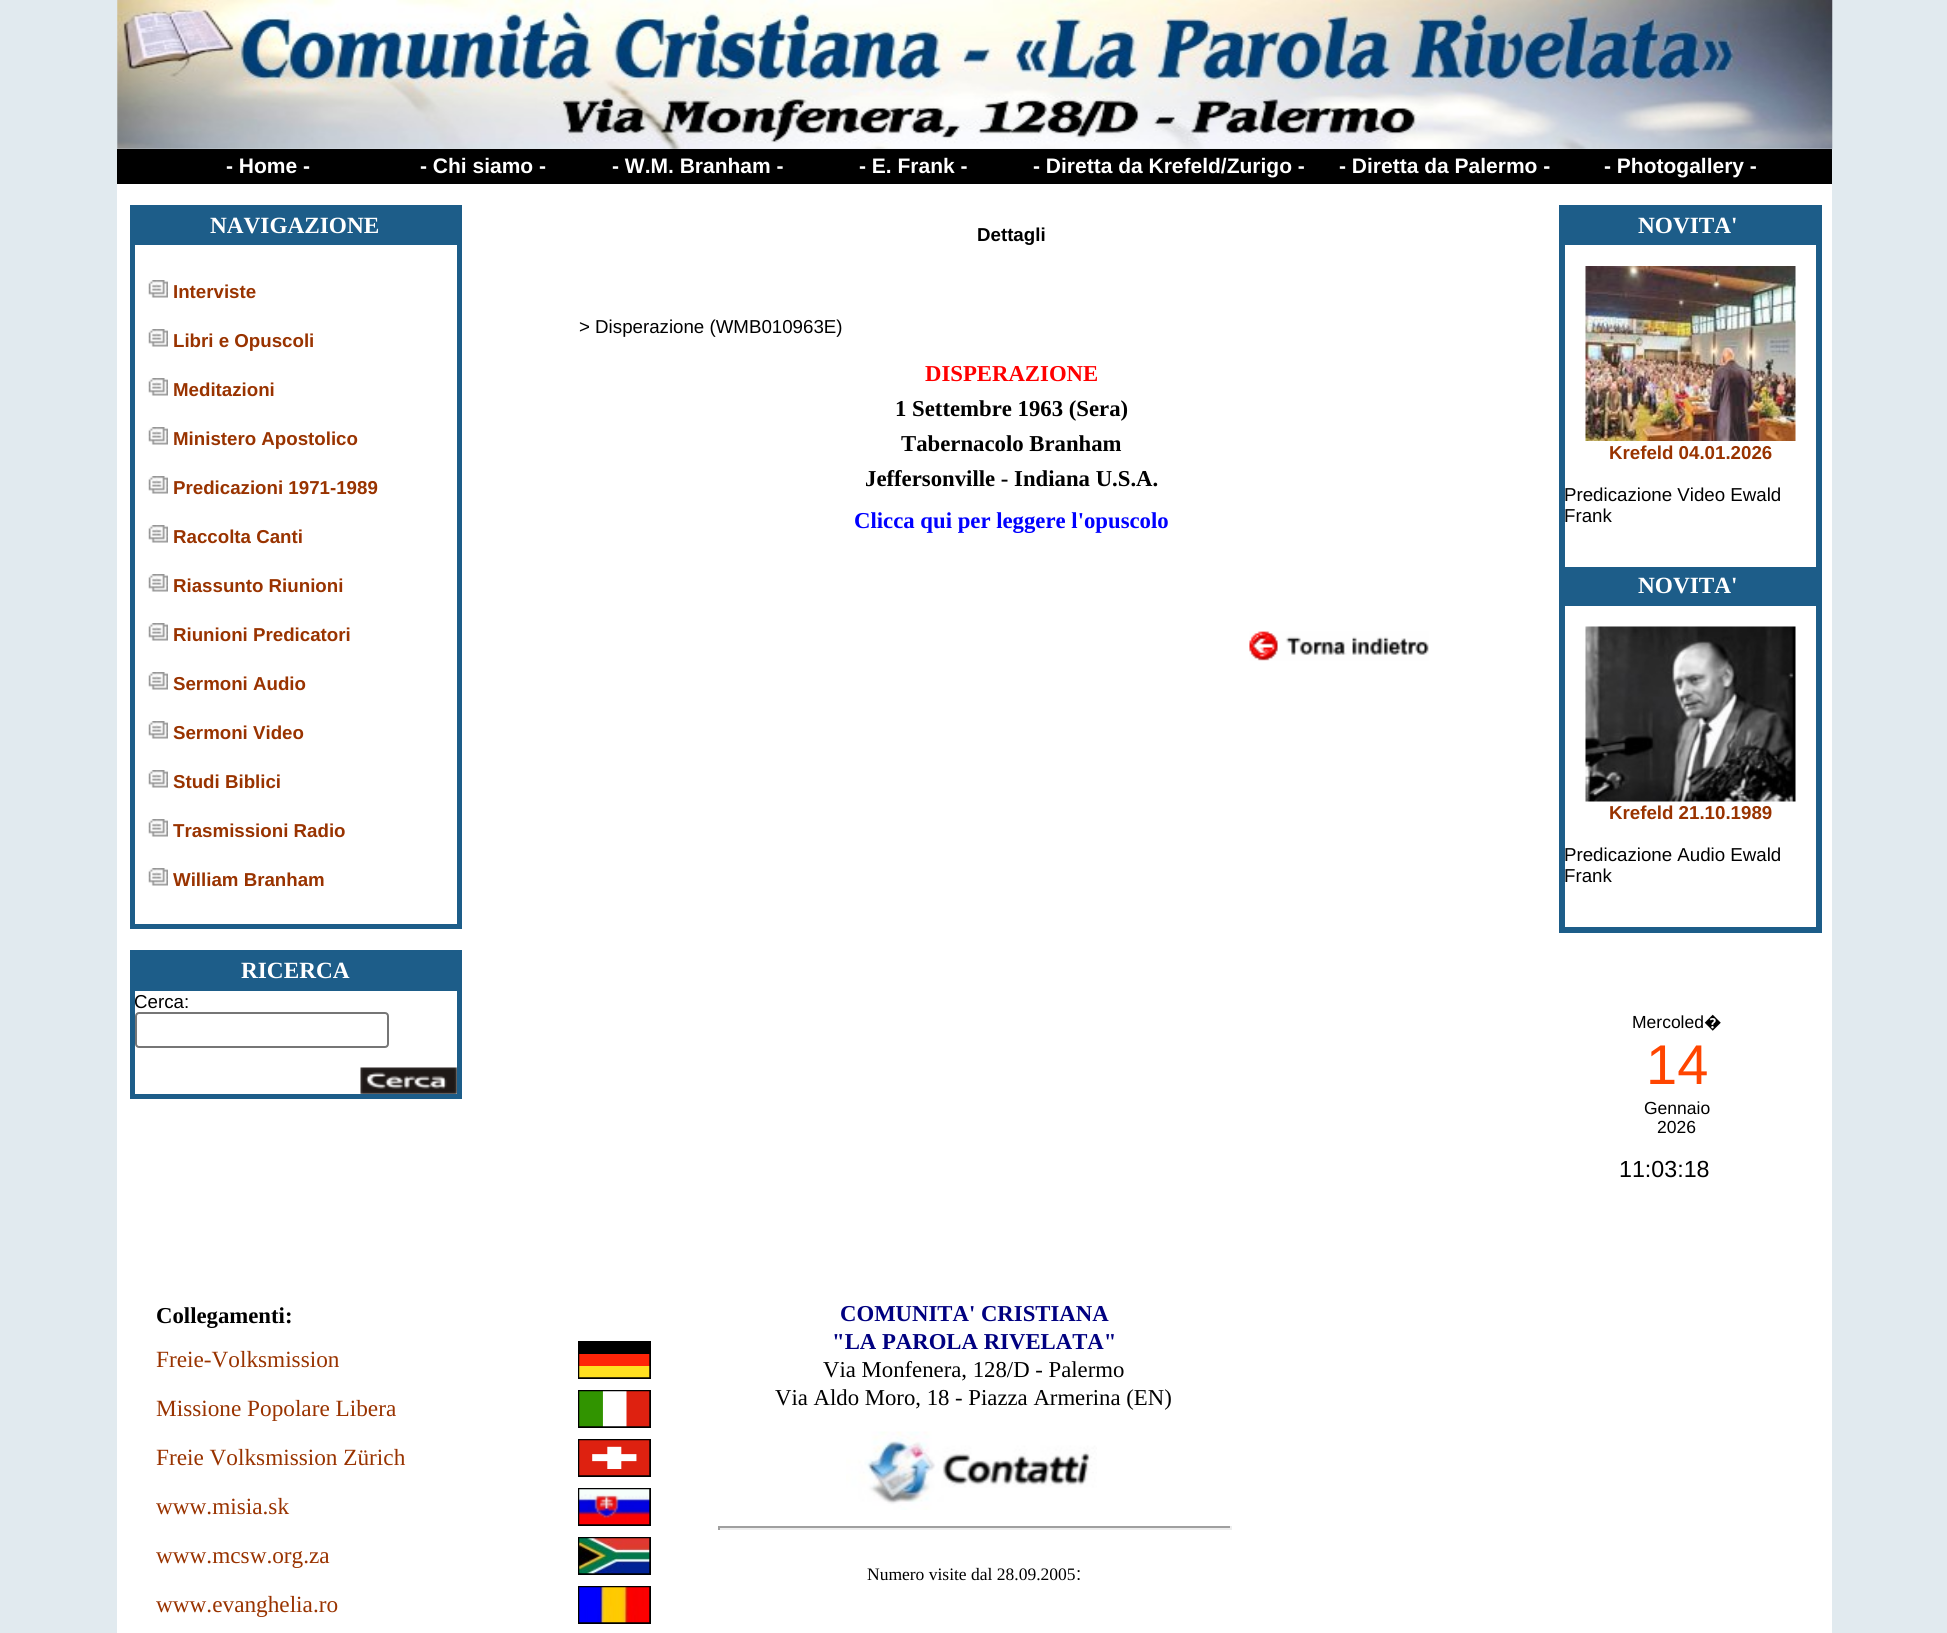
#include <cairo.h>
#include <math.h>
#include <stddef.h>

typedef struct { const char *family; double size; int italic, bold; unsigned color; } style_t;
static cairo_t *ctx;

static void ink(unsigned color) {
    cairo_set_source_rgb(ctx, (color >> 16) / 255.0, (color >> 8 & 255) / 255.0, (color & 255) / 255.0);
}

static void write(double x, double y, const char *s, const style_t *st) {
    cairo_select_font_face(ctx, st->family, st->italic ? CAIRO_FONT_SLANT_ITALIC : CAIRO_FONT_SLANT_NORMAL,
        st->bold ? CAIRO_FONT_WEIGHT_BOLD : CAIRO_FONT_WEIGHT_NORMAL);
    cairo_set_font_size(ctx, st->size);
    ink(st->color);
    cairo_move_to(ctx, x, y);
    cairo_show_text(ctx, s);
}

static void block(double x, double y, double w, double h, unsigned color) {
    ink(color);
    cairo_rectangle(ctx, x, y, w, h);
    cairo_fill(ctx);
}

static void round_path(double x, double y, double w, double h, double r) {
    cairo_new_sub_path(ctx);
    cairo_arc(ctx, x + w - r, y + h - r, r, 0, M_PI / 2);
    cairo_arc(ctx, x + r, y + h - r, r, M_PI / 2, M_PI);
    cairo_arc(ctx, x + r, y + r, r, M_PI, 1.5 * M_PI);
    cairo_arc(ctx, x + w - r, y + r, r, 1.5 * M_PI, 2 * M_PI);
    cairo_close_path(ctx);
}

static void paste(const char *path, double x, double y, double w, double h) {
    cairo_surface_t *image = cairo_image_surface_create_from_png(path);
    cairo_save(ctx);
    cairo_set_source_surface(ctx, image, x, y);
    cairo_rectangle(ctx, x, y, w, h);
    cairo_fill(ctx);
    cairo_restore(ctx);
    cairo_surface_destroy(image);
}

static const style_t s1 = {"Liberation Sans", 21, 0, 1, 0xffffff};
static const style_t s2 = {"Liberation Serif", 23.25, 0, 1, 0xffffff};
static const style_t s3 = {"Liberation Sans", 18.7, 0, 1, 0x993300};
static const style_t s4 = {"Liberation Sans", 18.7, 0, 0, 0x000000};
static const style_t s5 = {"Liberation Sans", 18.7, 0, 1, 0x000000};
static const style_t s6 = {"Liberation Serif", 22.75, 0, 1, 0xff0000};
static const style_t s7 = {"Liberation Serif", 22.75, 0, 1, 0x000000};
static const style_t s8 = {"Liberation Serif", 22.75, 0, 1, 0x0000ff};
static const style_t s9 = {"Liberation Sans", 17.5, 0, 0, 0x000000};
static const style_t s10 = {"Noto Sans", 17.5, 0, 0, 0x000000};
static const style_t s11 = {"Liberation Sans", 56, 0, 0, 0xff4500};
static const style_t s12 = {"Liberation Sans", 23.25, 0, 0, 0x000000};
static const style_t s13 = {"Liberation Serif", 23.25, 0, 0, 0x993300};
static const style_t s14 = {"Liberation Serif", 22.75, 0, 1, 0x000080};
static const style_t s15 = {"Liberation Serif", 22.75, 0, 0, 0x000000};
static const style_t s16 = {"Liberation Serif", 17.5, 0, 0, 0x000000};

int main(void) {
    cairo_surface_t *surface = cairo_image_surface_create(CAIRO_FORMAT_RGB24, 1947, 1633);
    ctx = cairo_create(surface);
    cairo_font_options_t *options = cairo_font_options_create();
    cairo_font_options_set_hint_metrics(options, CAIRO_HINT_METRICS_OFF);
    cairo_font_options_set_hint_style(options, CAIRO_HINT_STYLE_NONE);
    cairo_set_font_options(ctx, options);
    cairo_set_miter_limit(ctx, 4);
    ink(0xe1eaef);
    cairo_paint(ctx);
    paste("pic1.png", 117, 0, 1716, 149);
    block(117, 149, 1715, 35, 0x000000);
    write(226, 173, "- Home -", &s1);
    write(420, 173, "- Chi siamo -", &s1);
    write(612, 173, "- W.M. Branham -", &s1);
    write(859, 173, "- E. Frank -", &s1);
    write(1033, 173, "- Diretta da Krefeld/Zurigo -", &s1);
    write(1339, 173, "- Diretta da Palermo -", &s1);
    write(1604, 173, "- Photogallery -", &s1);
    block(117, 184, 1715, 1449, 0xffffff);
    cairo_rectangle(ctx, 132, 207, 328, 720);
    ink(0x1d5d89);
    cairo_set_line_width(ctx, 4);
    cairo_stroke(ctx);
    block(134, 209, 324, 34, 0x1d5d89);
    write(210, 233, "NAVIGAZIONE", &s2);
    cairo_rectangle(ctx, 134, 244, 324, 681);
    ink(0x1d5d89);
    cairo_set_line_width(ctx, 2);
    cairo_stroke(ctx);
    paste("pic2.png", 148, 280, 20, 18);
    write(173, 298, "Interviste", &s3);
    paste("pic2.png", 148, 329, 20, 18);
    write(173, 347, "Libri e Opuscoli", &s3);
    paste("pic2.png", 148, 378, 20, 18);
    write(173, 396, "Meditazioni", &s3);
    paste("pic2.png", 148, 427, 20, 18);
    write(173, 445, "Ministero Apostolico", &s3);
    paste("pic2.png", 148, 476, 20, 18);
    write(173, 494, "Predicazioni 1971-1989", &s3);
    paste("pic2.png", 148, 525, 20, 18);
    write(173, 543, "Raccolta Canti", &s3);
    paste("pic2.png", 148, 574, 20, 18);
    write(173, 592, "Riassunto Riunioni", &s3);
    paste("pic2.png", 148, 623, 20, 18);
    write(173, 641, "Riunioni Predicatori", &s3);
    paste("pic2.png", 148, 672, 20, 18);
    write(173, 690, "Sermoni Audio", &s3);
    paste("pic2.png", 148, 721, 20, 18);
    write(173, 739, "Sermoni Video", &s3);
    paste("pic2.png", 148, 770, 20, 18);
    write(173, 788, "Studi Biblici", &s3);
    paste("pic2.png", 148, 819, 20, 18);
    write(173, 837, "Trasmissioni Radio", &s3);
    paste("pic2.png", 148, 868, 20, 18);
    write(173, 886, "William Branham", &s3);
    cairo_rectangle(ctx, 132, 952, 328, 145);
    ink(0x1d5d89);
    cairo_set_line_width(ctx, 4);
    cairo_stroke(ctx);
    block(134, 954, 324, 35, 0x1d5d89);
    write(241, 978, "RICERCA", &s2);
    cairo_rectangle(ctx, 134, 990, 324, 105);
    ink(0x1d5d89);
    cairo_set_line_width(ctx, 2);
    cairo_stroke(ctx);
    write(134, 1008, "Cerca:", &s4);
    round_path(136, 1013, 252, 34, 3);
    ink(0x767676);
    cairo_stroke(ctx);
    paste("pic3.png", 360, 1067, 97, 27);
    write(977, 241, "Dettagli", &s5);
    write(579, 333, "> Disperazione (WMB010963E)", &s4);
    write(925, 381, "DISPERAZIONE", &s6);
    write(895, 416, "1 Settembre 1963 (Sera)", &s7);
    write(901, 451, "Tabernacolo Branham", &s7);
    write(865, 486, "Jeffersonville - Indiana U.S.A.", &s7);
    write(854, 528, "Clicca qui per leggere l'opuscolo", &s8);
    paste("pic4.png", 1249, 631, 180, 30);
    cairo_rectangle(ctx, 1561, 207, 259, 724);
    ink(0x1d5d89);
    cairo_set_line_width(ctx, 4);
    cairo_stroke(ctx);
    block(1563, 209, 252, 34, 0x1d5d89);
    write(1638, 233, "NOVITA'", &s2);
    block(1815, 208, 3, 35, 0x1d5d89);
    cairo_rectangle(ctx, 1564, 244, 253, 324);
    cairo_set_line_width(ctx, 2);
    cairo_stroke(ctx);
    paste("pic5.png", 1585, 266, 211, 175);
    write(1609, 459, "Krefeld 04.01.2026", &s3);
    write(1564, 501, "Predicazione Video Ewald", &s4);
    write(1564, 522, "Frank", &s4);
    block(1563, 569, 255, 35, 0x1d5d89);
    write(1638, 593, "NOVITA'", &s2);
    cairo_rectangle(ctx, 1564, 605, 253, 323);
    ink(0x1d5d89);
    cairo_stroke(ctx);
    paste("pic6.png", 1585, 626, 211, 176);
    write(1609, 819, "Krefeld 21.10.1989", &s3);
    write(1564, 861, "Predicazione Audio Ewald", &s4);
    write(1564, 882, "Frank", &s4);
    write(1632, 1028, "Mercoled", &s9);
    write(1704, 1028, "�", &s10);
    write(1646, 1084, "14", &s11);
    write(1644, 1114, "Gennaio", &s9);
    write(1657, 1133, "2026", &s9);
    write(1619, 1177, "11:03:18", &s12);
    write(156, 1323, "Collegamenti:", &s7);
    write(156, 1367, "Freie-Volksmission", &s13);
    cairo_rectangle(ctx, 579, 1342, 71, 36);
    ink(0x000000);
    cairo_stroke(ctx);
    paste("pic7.png", 579, 1343, 71, 35);
    write(156, 1416, "Missione Popolare Libera", &s13);
    cairo_rectangle(ctx, 579, 1391, 71, 36);
    ink(0x000000);
    cairo_stroke(ctx);
    paste("pic8.png", 579, 1391, 71, 36);
    write(156, 1465, "Freie Volksmission Zürich", &s13);
    cairo_rectangle(ctx, 579, 1440, 71, 36);
    ink(0x000000);
    cairo_stroke(ctx);
    paste("pic9.png", 579, 1440, 71, 36);
    write(156, 1514, "www.misia.sk", &s13);
    cairo_rectangle(ctx, 579, 1489, 71, 36);
    ink(0x000000);
    cairo_stroke(ctx);
    paste("pic10.png", 579, 1489, 71, 36);
    write(156, 1563, "www.mcsw.org.za", &s13);
    cairo_rectangle(ctx, 579, 1538, 71, 36);
    ink(0x000000);
    cairo_stroke(ctx);
    paste("pic11.png", 579, 1538, 71, 36);
    write(156, 1612, "www.evanghelia.ro", &s13);
    cairo_rectangle(ctx, 579, 1587, 71, 36);
    ink(0x000000);
    cairo_stroke(ctx);
    paste("pic12.png", 579, 1587, 71, 36);
    write(840, 1321, "COMUNITA' CRISTIANA", &s14);
    write(832, 1349, "\"LA PAROLA RIVELATA\"", &s14);
    write(823, 1377, "Via Monfenera, 128/D - Palermo", &s15);
    write(775, 1405, "Via Aldo Moro, 18 - Piazza Armerina (EN)", &s15);
    paste("pic13.png", 846, 1431, 251, 79);
    block(718, 1526, 514, 2, 0x9f9f9f);
    block(1230, 1526, 2, 4, 0xeeeeee);
    block(718, 1528, 514, 2, 0xeeeeee);
    block(718, 1526, 2, 4, 0x9f9f9f);
    write(867, 1580, "Numero visite dal 28.09.2005", &s16);
    write(1076, 1580, ":", &s4);
    cairo_surface_write_to_png(surface, "screenshot.png");
    cairo_font_options_destroy(options);
    cairo_destroy(ctx);
    cairo_surface_destroy(surface);
    return 0;
}
